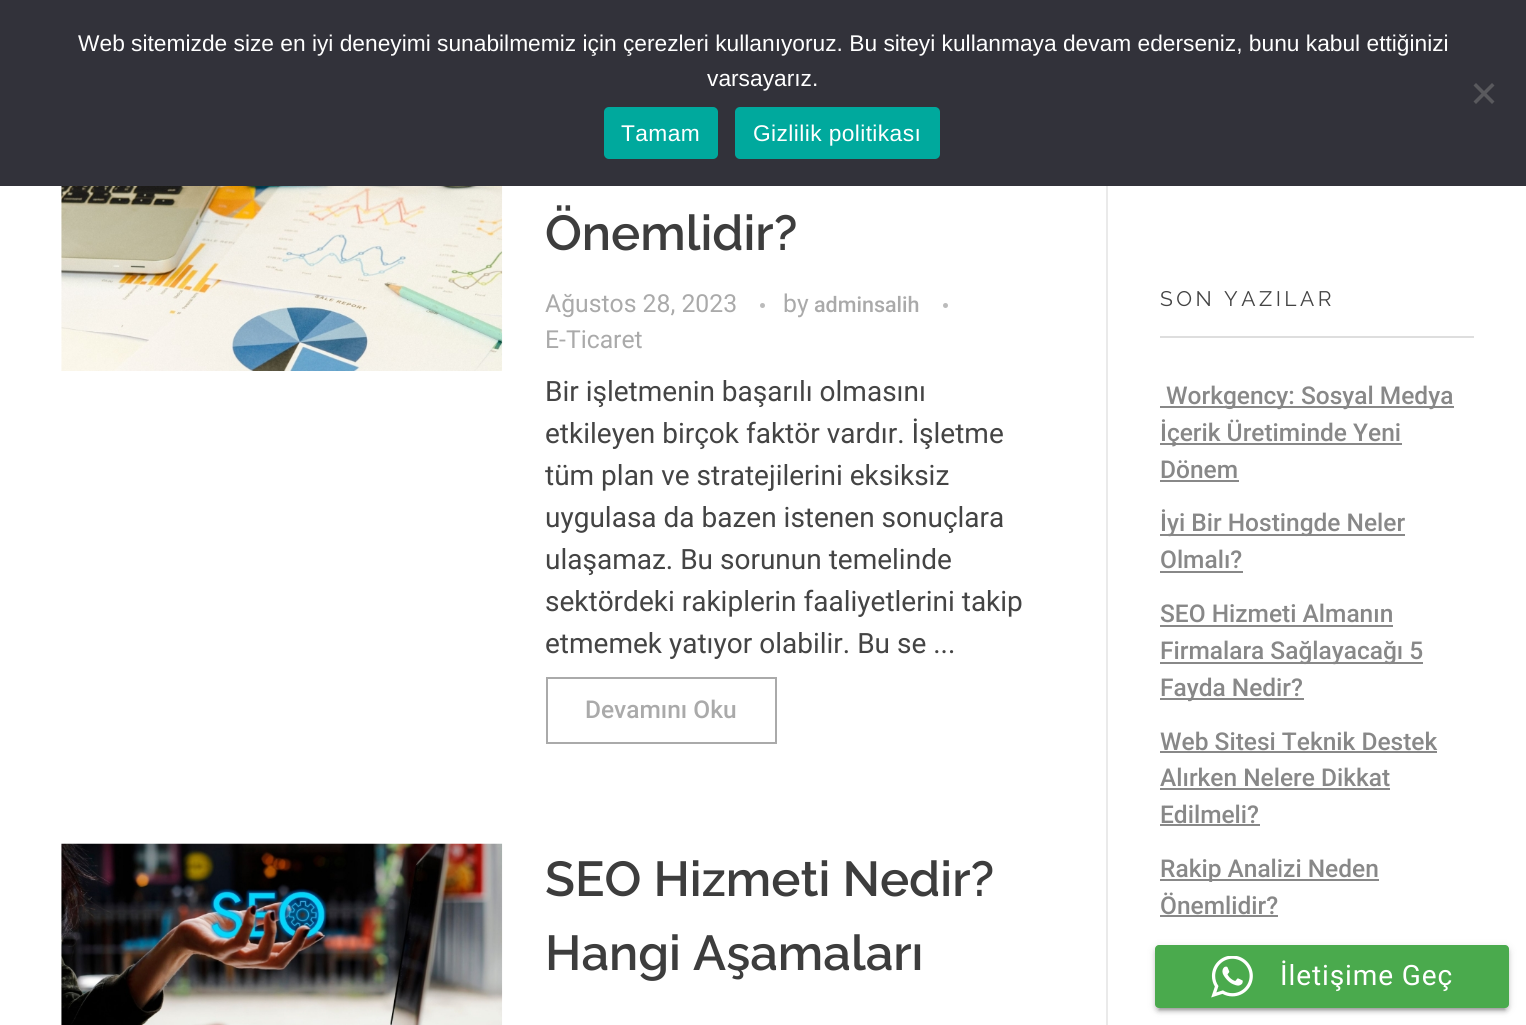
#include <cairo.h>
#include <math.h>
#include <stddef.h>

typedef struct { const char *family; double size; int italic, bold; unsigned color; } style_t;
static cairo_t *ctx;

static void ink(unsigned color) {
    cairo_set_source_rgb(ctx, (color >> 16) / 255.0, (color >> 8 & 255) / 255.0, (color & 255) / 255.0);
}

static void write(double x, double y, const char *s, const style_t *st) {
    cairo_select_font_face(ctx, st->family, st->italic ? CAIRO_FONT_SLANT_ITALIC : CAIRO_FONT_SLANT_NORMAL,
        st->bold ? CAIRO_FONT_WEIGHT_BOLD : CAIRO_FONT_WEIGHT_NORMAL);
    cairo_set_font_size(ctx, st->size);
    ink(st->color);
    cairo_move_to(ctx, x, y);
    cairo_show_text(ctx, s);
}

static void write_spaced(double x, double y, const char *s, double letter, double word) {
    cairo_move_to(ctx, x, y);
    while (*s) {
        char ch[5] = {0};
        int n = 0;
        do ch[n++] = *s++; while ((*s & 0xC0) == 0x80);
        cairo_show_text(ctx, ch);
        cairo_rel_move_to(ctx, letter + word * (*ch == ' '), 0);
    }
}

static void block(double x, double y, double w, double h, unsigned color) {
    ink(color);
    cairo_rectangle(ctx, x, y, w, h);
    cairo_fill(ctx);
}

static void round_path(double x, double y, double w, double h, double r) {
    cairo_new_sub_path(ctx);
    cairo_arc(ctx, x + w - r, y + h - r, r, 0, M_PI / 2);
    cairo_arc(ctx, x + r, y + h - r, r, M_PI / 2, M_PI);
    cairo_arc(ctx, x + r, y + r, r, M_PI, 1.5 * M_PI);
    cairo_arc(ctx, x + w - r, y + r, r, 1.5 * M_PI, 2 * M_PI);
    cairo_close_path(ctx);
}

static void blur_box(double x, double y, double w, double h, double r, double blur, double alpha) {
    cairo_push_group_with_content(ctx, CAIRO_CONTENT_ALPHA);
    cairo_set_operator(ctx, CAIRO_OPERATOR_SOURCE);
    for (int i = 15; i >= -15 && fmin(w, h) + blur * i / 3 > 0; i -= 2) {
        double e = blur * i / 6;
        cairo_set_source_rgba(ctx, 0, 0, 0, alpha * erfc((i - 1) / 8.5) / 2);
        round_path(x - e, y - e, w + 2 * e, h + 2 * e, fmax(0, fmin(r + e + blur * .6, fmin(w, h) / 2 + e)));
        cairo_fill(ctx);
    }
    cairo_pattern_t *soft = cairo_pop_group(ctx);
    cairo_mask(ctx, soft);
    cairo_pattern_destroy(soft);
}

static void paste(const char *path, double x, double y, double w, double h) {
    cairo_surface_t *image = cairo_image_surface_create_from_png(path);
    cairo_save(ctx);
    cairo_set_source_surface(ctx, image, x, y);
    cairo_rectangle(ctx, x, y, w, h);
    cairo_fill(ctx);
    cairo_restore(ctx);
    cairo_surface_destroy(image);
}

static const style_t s1 = {"Liberation Sans", 22.75, 0, 0, 0xffffff};
static const style_t s2 = {"Raleway SemiBold", 49, 0, 0, 0x3d3d3d};
static const style_t s3 = {"Roboto", 24.75, 0, 0, 0xaaaaaa};
static const style_t s4 = {"Roboto Medium", 21.5, 0, 0, 0xaaaaaa};
static const style_t s5 = {"Roboto", 28, 0, 0, 0x444444};
static const style_t s6 = {"Roboto Medium", 24.5, 0, 0, 0xaaaaaa};
static const style_t s7 = {"Roboto Medium", 24.5, 0, 0, 0x888888};

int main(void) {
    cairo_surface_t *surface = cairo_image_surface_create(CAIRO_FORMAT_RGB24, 1526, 1025);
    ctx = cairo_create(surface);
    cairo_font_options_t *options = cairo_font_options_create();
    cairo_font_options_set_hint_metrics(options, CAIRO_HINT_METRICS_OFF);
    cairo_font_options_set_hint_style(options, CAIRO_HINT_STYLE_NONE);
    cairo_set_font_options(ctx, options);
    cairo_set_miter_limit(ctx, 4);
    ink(0xffffff);
    cairo_paint(ctx);
    block(0, 0, 1526, 186, 0x32323a);
    write(78, 51, "Web sitemizde size en iyi deneyimi sunabilmemiz için çerezleri kullanıyoruz. Bu siteyi kullanmaya devam ederseniz, bunu kabul ettiğinizi", &s1);
    write(707, 86, "varsayarız.", &s1);
    ink(0x59595d);
    cairo_new_path(ctx);
    cairo_move_to(ctx, 1492, 83);
    cairo_line_to(ctx, 1494.5, 85.5);
    cairo_line_to(ctx, 1476, 104);
    cairo_line_to(ctx, 1473.5, 101.5);
    cairo_close_path(ctx);
    cairo_fill(ctx);
    cairo_new_path(ctx);
    cairo_move_to(ctx, 1473.5, 85.5);
    cairo_line_to(ctx, 1476, 83);
    cairo_line_to(ctx, 1494.5, 101.5);
    cairo_line_to(ctx, 1492, 104);
    cairo_close_path(ctx);
    cairo_fill(ctx);
    ink(0x00a99d);
    round_path(604, 107, 114, 52, 5);
    cairo_fill(ctx);
    ink(0xffffff);
    write_spaced(621, 141, "Tamam", 0.4, 0);
    ink(0x00a99d);
    round_path(735, 107, 205, 52, 5);
    cairo_fill(ctx);
    ink(0xffffff);
    write_spaced(753, 141, "Gizlilik politikası", 0.4, 0);
    paste("pic1.png", 61, 186, 442, 185);
    write(545, 250, "Önemlidir?", &s2);
    write(545, 312, "Ağustos 28, 2023", &s3);
    ink(0xbbbbbb);
    cairo_new_path(ctx);
    cairo_arc(ctx, 762.5, 305.5, 2.5, 0, 2 * M_PI);
    cairo_fill(ctx);
    write(783, 312, "by", &s3);
    write(814, 312, "adminsalih", &s4);
    ink(0xbbbbbb);
    cairo_new_path(ctx);
    cairo_arc(ctx, 945.5, 305.5, 2.5, 0, 2 * M_PI);
    cairo_fill(ctx);
    write(545, 348, "E-Ticaret", &s3);
    write(545, 401, "Bir işletmenin başarılı olmasını", &s5);
    write(545, 443, "etkileyen birçok faktör vardır. İşletme", &s5);
    write(545, 485, "tüm plan ve stratejilerini eksiksiz", &s5);
    write(545, 527, "uygulasa da bazen istenen sonuçlara", &s5);
    write(545, 569, "ulaşamaz. Bu sorunun temelinde", &s5);
    write(545, 611, "sektördeki rakiplerin faaliyetlerini takip", &s5);
    write(545, 653, "etmemek yatıyor olabilir. Bu se ...", &s5);
    cairo_rectangle(ctx, 547, 678, 229, 65);
    ink(0xaaaaaa);
    cairo_stroke(ctx);
    write(585, 718, "Devamını Oku", &s6);
    paste("pic2.png", 61, 843, 442, 182);
    write(545, 896, "SEO Hizmeti Nedir?", &s2);
    write(545, 970, "Hangi Aşamaları", &s2);
    block(1106, 186, 2, 839, 0xeaeaea);
    block(1160, 336, 314, 2, 0xdedede);
    cairo_select_font_face(ctx, "Raleway", CAIRO_FONT_SLANT_NORMAL, CAIRO_FONT_WEIGHT_NORMAL);
    cairo_set_font_size(ctx, 21);
    ink(0x444444);
    write_spaced(1160, 306, "SON YAZILAR", 3.5, 0);
    block(1160, 406, 294, 2, 0x888888);
    write(1166, 404, "Workgency: Sosyal Medya", &s7);
    block(1160, 443, 242, 2, 0x888888);
    write(1160, 441, "İçerik Üretiminde Yeni", &s7);
    write(1160, 478, "Dönem", &s7);
    block(1160, 480, 79, 2, 0x888888);
    block(1160, 534, 245, 2, 0x888888);
    write(1160, 531, "İyi Bir Hostingde Neler", &s7);
    write(1160, 568, "Olmalı?", &s7);
    block(1160, 571, 83, 2, 0x888888);
    write(1160, 622, "SEO Hizmeti Almanın", &s7);
    block(1160, 625, 233, 2, 0x888888);
    block(1160, 662, 263, 2, 0x888888);
    write(1160, 659, "Firmalara Sağlayacağı 5", &s7);
    block(1160, 698, 144, 2, 0x888888);
    write(1160, 696, "Fayda Nedir?", &s7);
    write(1160, 750, "Web Sitesi Teknik Destek", &s7);
    block(1160, 751, 277, 2, 0x888888);
    write(1160, 786, "Alırken Nelere Dikkat", &s7);
    block(1160, 788, 230, 2, 0x888888);
    write(1160, 823, "Edilmeli?", &s7);
    block(1160, 824, 100, 2, 0x888888);
    block(1160, 879, 219, 2, 0x888888);
    write(1160, 877, "Rakip Analizi Neden", &s7);
    write(1160, 914, "Önemlidir?", &s7);
    block(1160, 915, 118, 2, 0x888888);
    ink(0x000000);
    blur_box(1159, 954, 346, 56, 0, 1, 0.2);
    blur_box(1155, 947, 354, 63, 4, 4.5, 0.12);
    blur_box(1155, 949, 354, 63, 4, 2, 0.14);
    ink(0x4aaa4d);
    round_path(1155, 945, 354, 63, 4);
    cairo_fill(ctx);
    paste("pic3.png", 1211, 956, 42, 42);
    cairo_select_font_face(ctx, "Roboto", CAIRO_FONT_SLANT_NORMAL, CAIRO_FONT_WEIGHT_NORMAL);
    cairo_set_font_size(ctx, 28);
    ink(0xffffff);
    write_spaced(1280, 985, "İletişime Geç", 0.9, 0);
    cairo_surface_write_to_png(surface, "screenshot.png");
    cairo_font_options_destroy(options);
    cairo_destroy(ctx);
    cairo_surface_destroy(surface);
    return 0;
}
